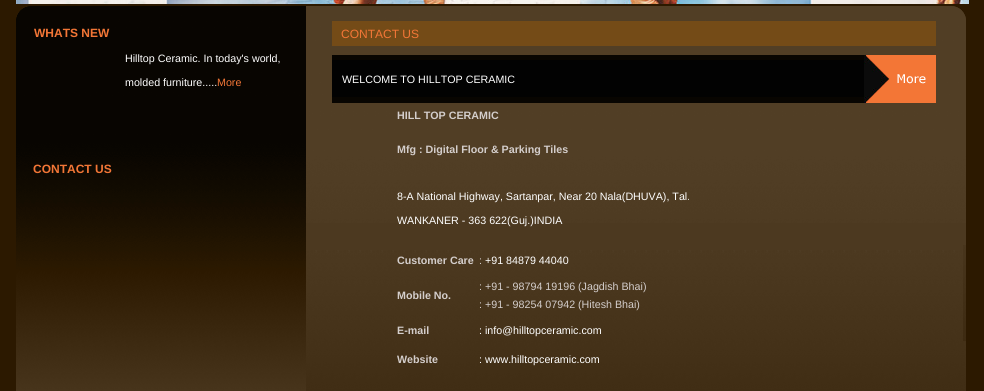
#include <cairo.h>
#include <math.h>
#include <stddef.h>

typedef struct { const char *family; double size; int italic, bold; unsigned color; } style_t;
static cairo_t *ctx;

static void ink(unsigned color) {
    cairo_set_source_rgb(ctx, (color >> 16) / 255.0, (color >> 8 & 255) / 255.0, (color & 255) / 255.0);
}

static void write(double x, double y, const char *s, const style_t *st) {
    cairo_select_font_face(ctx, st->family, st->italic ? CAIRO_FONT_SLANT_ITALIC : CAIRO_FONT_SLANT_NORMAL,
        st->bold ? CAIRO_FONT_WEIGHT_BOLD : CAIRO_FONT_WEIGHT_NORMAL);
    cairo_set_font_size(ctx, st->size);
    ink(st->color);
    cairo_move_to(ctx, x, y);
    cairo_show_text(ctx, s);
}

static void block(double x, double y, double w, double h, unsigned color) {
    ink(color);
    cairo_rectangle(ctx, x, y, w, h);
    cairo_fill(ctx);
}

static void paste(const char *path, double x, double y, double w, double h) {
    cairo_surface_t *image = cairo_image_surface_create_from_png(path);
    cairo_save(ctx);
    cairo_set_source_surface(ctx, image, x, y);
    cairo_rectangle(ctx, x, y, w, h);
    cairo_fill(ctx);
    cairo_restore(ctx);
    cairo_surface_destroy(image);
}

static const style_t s1 = {"Liberation Sans", 12, 0, 1, 0xf37636};
static const style_t s2 = {"Liberation Sans", 10.7, 0, 0, 0xffffff};
static const style_t s3 = {"Liberation Sans", 10.7, 0, 0, 0xf37636};
static const style_t s4 = {"Liberation Sans", 12, 0, 0, 0xf37636};
static const style_t s5 = {"Liberation Sans", 10.7, 0, 1, 0xd4cecc};
static const style_t s6 = {"Liberation Sans", 10.7, 0, 0, 0xd4cecc};

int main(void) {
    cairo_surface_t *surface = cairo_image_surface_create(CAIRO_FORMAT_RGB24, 984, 391);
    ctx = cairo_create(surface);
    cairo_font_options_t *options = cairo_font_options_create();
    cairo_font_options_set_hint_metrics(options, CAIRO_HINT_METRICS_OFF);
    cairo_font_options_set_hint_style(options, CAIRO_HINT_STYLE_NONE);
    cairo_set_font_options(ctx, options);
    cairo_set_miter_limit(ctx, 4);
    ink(0x2c1900);
    cairo_paint(ctx);
    paste("pic1.png", 16, 0, 953, 4);
    paste("pic2.png", 16, 6, 290, 15);
    paste("pic3.png", 306, 6, 660, 15);
    paste("pic4.png", 16, 21, 290, 370);
    write(34, 37, "WHATS NEW", &s1);
    write(125, 62, "Hilltop Ceramic. In today's world,", &s2);
    write(125, 86, "molded furniture.....", &s2);
    write(217, 86, "More", &s3);
    write(33, 173, "CONTACT US", &s1);
    paste("pic5.png", 306, 21, 660, 370);
    block(332, 21, 604, 25, 0x744b17);
    write(341, 38, "CONTACT US", &s4);
    paste("pic6.png", 332, 55, 532, 48);
    write(342, 83, "WELCOME TO HILLTOP CERAMIC", &s2);
    paste("pic7.png", 864, 55, 72, 48);
    write(397, 119, "HILL TOP CERAMIC", &s5);
    write(397, 153, "Mfg : Digital Floor & Parking Tiles", &s5);
    write(397, 200, "8-A National Highway, Sartanpar, Near 20 Nala(DHUVA), Tal.", &s2);
    write(397, 224, "WANKANER - 363 622(Guj.)INDIA", &s2);
    write(397, 264, "Customer Care", &s5);
    write(479, 264, ":", &s6);
    write(485, 264, "+91 84879 44040", &s2);
    write(397, 299, "Mobile No.", &s5);
    write(479, 290, ": +91 - 98794 19196 (Jagdish Bhai)", &s6);
    write(479, 308, ": +91 - 98254 07942 (Hitesh Bhai)", &s6);
    write(397, 334, "E-mail", &s5);
    write(479, 334, ": info@hilltopceramic.com", &s2);
    write(397, 363, "Website", &s5);
    write(479, 363, ": www.hilltopceramic.com", &s2);
    paste("pic8.png", 963, 245, 3, 96);
    cairo_surface_write_to_png(surface, "screenshot.png");
    cairo_font_options_destroy(options);
    cairo_destroy(ctx);
    cairo_surface_destroy(surface);
    return 0;
}
